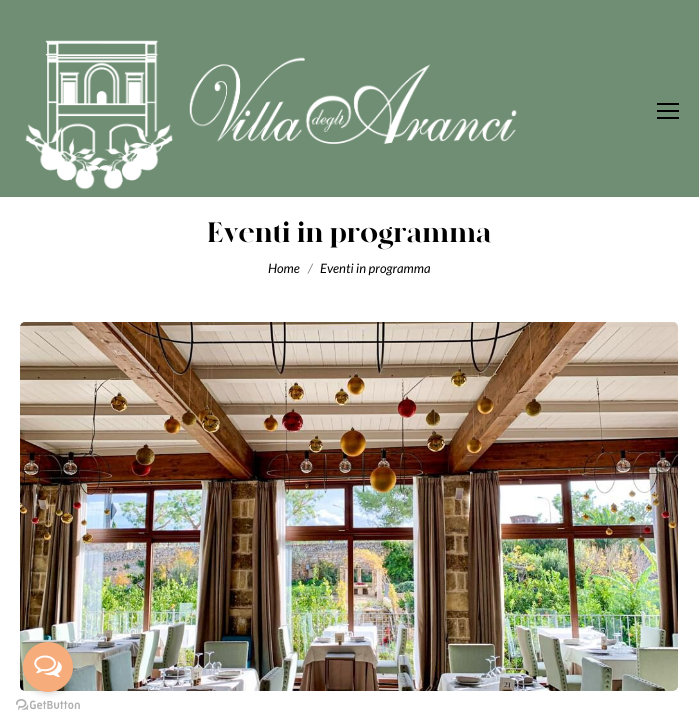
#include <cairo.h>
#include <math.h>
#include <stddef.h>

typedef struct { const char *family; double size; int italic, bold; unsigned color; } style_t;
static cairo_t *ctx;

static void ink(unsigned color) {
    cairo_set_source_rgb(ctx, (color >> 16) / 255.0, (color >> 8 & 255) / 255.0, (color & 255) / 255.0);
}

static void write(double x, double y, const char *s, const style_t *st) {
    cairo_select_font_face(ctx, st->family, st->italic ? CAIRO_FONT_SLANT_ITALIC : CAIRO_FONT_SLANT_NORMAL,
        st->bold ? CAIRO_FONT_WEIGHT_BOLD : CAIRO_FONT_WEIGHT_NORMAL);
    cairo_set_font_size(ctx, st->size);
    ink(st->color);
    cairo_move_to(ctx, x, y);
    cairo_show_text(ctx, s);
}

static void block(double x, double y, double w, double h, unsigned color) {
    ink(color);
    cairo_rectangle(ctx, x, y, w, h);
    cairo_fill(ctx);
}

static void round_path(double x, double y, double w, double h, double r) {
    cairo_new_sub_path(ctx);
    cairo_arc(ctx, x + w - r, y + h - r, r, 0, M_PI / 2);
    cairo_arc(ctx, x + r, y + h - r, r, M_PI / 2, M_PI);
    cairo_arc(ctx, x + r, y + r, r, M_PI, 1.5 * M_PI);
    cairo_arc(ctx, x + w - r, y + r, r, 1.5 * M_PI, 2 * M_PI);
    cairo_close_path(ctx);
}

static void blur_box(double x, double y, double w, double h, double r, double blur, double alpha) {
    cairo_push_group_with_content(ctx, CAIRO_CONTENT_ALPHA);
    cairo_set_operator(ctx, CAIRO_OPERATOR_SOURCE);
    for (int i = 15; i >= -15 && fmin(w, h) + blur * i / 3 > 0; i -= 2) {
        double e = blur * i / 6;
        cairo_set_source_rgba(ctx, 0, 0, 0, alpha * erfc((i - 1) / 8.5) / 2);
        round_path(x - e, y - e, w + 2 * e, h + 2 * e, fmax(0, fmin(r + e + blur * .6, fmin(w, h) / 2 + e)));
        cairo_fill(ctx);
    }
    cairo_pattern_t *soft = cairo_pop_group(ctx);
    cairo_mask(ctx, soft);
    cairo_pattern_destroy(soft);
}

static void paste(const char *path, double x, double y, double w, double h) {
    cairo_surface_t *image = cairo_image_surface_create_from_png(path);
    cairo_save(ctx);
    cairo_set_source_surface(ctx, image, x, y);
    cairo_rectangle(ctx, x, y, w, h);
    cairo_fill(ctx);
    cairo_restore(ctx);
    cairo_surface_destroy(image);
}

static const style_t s1 = {"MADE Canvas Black", 28, 0, 0, 0x000000};
static const style_t s2 = {"Lato", 13, 1, 0, 0x000000};
static const style_t s3 = {"Lato", 13, 1, 0, 0x808080};

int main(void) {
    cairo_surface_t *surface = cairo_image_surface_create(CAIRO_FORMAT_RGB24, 699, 726);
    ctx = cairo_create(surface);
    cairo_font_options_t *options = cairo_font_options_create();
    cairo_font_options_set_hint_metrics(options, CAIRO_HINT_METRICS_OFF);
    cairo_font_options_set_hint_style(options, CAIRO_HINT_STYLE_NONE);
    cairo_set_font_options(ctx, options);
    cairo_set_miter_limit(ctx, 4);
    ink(0xffffff);
    cairo_paint(ctx);
    block(0, 0, 699, 197, 0x6f8e73);
    paste("pic1.png", 25, 40, 492, 150);
    block(657, 110, 22, 2, 0x000000);
    block(657, 103, 22, 2, 0x000000);
    block(657, 117, 22, 2, 0x000000);
    write(207, 242, "Eventi in programma", &s1);
    write(268, 273, "Home", &s2);
    write(308, 273, "/", &s3);
    write(320, 273, "Eventi in programma", &s2);
    paste("pic2.png", 20, 322, 658, 369);
    paste("pic4.png", 16, 699, 64, 11);
    ink(0x888888);
    blur_box(23, 643, 50, 50, 25, 3.5, 0.4);
    ink(0xf6ac7b);
    cairo_arc(ctx, 48, 667, 25, 0, 2 * M_PI);
    cairo_fill(ctx);
    paste("pic3.png", 34, 655, 28, 23);
    cairo_surface_write_to_png(surface, "screenshot.png");
    cairo_font_options_destroy(options);
    cairo_destroy(ctx);
    cairo_surface_destroy(surface);
    return 0;
}
